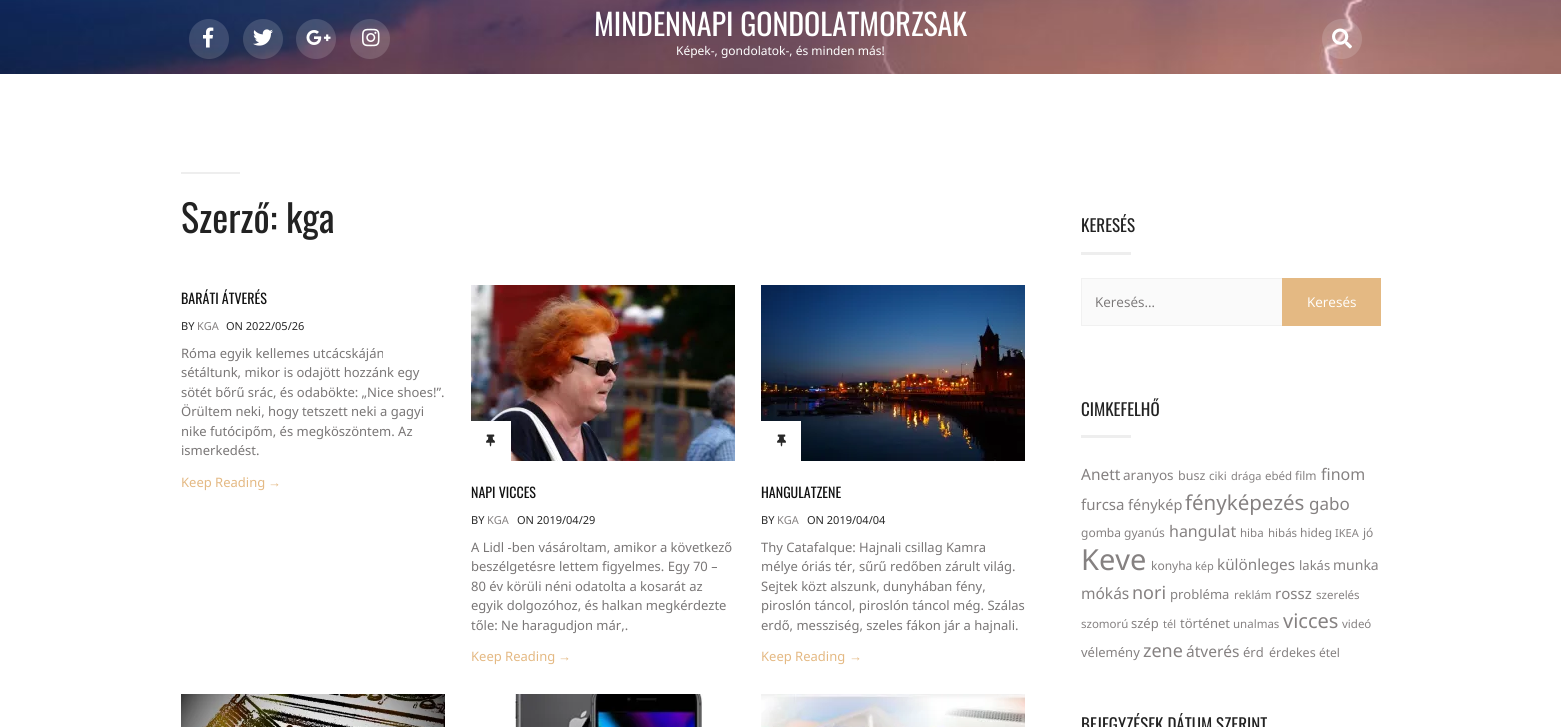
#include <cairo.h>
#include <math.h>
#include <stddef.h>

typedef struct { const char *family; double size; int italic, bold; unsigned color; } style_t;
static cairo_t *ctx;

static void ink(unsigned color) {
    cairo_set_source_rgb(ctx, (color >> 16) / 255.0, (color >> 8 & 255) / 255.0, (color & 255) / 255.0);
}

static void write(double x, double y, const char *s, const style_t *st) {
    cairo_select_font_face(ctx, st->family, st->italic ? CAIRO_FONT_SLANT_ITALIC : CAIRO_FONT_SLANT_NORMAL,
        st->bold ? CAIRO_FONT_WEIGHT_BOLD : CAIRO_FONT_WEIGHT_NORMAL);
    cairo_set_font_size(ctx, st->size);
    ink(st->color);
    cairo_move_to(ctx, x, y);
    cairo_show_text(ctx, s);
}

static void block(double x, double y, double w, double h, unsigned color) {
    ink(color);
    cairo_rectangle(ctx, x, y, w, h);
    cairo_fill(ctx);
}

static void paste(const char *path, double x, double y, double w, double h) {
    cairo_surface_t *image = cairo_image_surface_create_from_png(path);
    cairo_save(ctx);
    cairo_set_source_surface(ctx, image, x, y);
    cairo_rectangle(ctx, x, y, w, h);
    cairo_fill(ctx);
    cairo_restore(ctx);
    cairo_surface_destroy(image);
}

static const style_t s1 = {"Oswald", 30, 0, 0, 0xffffff};
static const style_t s2 = {"Noto Sans", 12, 0, 0, 0xffffff};
static const style_t s3 = {"Oswald", 38, 0, 0, 0x222222};
static const style_t s4 = {"Oswald", 14, 0, 0, 0x111111};
static const style_t s5 = {"Noto Sans", 11, 0, 0, 0x282828};
static const style_t s6 = {"Noto Sans", 11, 0, 0, 0x858181};
static const style_t s7 = {"Noto Sans", 13, 0, 0, 0x797676};
static const style_t s8 = {"Noto Sans", 13, 0, 0, 0xe4b983};
static const style_t s9 = {"Liberation Serif", 13, 0, 0, 0xe4b983};
static const style_t s10 = {"Oswald", 17, 0, 0, 0x222222};
static const style_t s11 = {"Open Sans", 13.5, 0, 0, 0x797676};
static const style_t s12 = {"Open Sans", 13.5, 0, 0, 0xffffff};
static const style_t s13 = {"Noto Sans", 15.5, 0, 0, 0x858181};
static const style_t s14 = {"Noto Sans", 13.5, 0, 0, 0x858181};
static const style_t s15 = {"Noto Sans", 12.5, 0, 0, 0x858181};
static const style_t s16 = {"Noto Sans", 11.5, 0, 0, 0x858181};
static const style_t s17 = {"Noto Sans", 12, 0, 0, 0x858181};
static const style_t s18 = {"Noto Sans", 16, 0, 0, 0x858181};
static const style_t s19 = {"Noto Sans", 15, 0, 0, 0x858181};
static const style_t s20 = {"Noto Sans", 14.5, 0, 0, 0x858181};
static const style_t s21 = {"Noto Sans", 20.5, 0, 0, 0x858181};
static const style_t s22 = {"Noto Sans", 17, 0, 0, 0x858181};
static const style_t s23 = {"Noto Sans", 29, 0, 0, 0x858181};
static const style_t s24 = {"Noto Sans", 15.25, 0, 0, 0x858181};
static const style_t s25 = {"Noto Sans", 13, 0, 0, 0x858181};
static const style_t s26 = {"Noto Sans", 14, 0, 0, 0x858181};
static const style_t s27 = {"Noto Sans", 18, 0, 0, 0x858181};
static const style_t s28 = {"Noto Sans", 20, 0, 0, 0x858181};

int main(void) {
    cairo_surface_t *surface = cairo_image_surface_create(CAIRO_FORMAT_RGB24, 1561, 727);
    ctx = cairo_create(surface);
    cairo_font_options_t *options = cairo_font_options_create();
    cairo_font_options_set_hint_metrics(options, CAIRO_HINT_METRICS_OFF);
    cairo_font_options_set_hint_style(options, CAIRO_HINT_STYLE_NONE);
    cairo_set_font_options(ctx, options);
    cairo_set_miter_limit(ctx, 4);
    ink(0xffffff);
    cairo_paint(ctx);
    paste("pic1.png", 0, 0, 1561, 74);
    cairo_set_source_rgba(ctx, 1, 1, 1, 0.15);
    cairo_arc(ctx, 209, 39, 20, 0, 2 * M_PI);
    cairo_fill(ctx);
    paste("pic2.png", 203, 27, 11, 21);
    cairo_arc(ctx, 263, 39, 20, 0, 2 * M_PI);
    cairo_fill(ctx);
    paste("pic3.png", 253, 29, 20, 17);
    cairo_arc(ctx, 316, 39, 20, 0, 2 * M_PI);
    cairo_fill(ctx);
    paste("pic4.png", 306, 30, 25, 15);
    cairo_arc(ctx, 370, 39, 20, 0, 2 * M_PI);
    cairo_fill(ctx);
    paste("pic5.png", 362, 28, 18, 19);
    cairo_save(ctx);
    cairo_rectangle(ctx, 181, 10, 1200, 54);
    cairo_clip(ctx);
    write(594, 36, "MINDENNAPI GONDOLATMORZSÁK", &s1);
    cairo_restore(ctx);
    write(676, 55, "Képek-, gondolatok-, és minden más!", &s2);
    cairo_set_source_rgba(ctx, 1, 1, 1, 0.15);
    cairo_new_path(ctx);
    cairo_arc(ctx, 1342, 39, 20, 0, 2 * M_PI);
    cairo_fill(ctx);
    paste("pic6.png", 1332, 28, 20, 21);
    block(181, 172, 59, 2, 0xeeeeee);
    write(181, 233, "Szerző: kga", &s3);
    write(181, 304, "BARÁTI ÁTVERÉS", &s4);
    write(181, 330, "BY", &s5);
    write(197, 330, "KGA", &s6);
    write(226, 330, "ON 2022/05/26", &s5);
    write(181, 358, "Róma egyik kellemes utcácskáján", &s7);
    write(181, 377, "sétáltunk, mikor is odajött hozzánk egy", &s7);
    write(181, 397, "sötét bőrű srác, és odabökte: „Nice shoes!”.", &s7);
    write(181, 416, "Örültem neki, hogy tetszett neki a gagyi", &s7);
    write(181, 436, "nike futócipőm, és megköszöntem. Az", &s7);
    write(181, 455, "ismerkedést.", &s7);
    write(181, 487, "Keep Reading", &s8);
    write(268, 487, "→", &s9);
    paste("pic7.png", 471, 285, 264, 176);
    block(471, 421, 40, 40, 0xffffff);
    paste("pic8.png", 486, 434, 9, 13);
    write(471, 498, "NAPI VICCES", &s4);
    write(471, 524, "BY", &s5);
    write(487, 524, "KGA", &s6);
    write(517, 524, "ON 2019/04/29", &s5);
    write(471, 552, "A Lidl -ben vásároltam, amikor a következő", &s7);
    write(471, 571, "beszélgetésre lettem figyelmes. Egy 70 –", &s7);
    write(471, 591, "80 év körüli néni odatolta a kosarát az", &s7);
    write(471, 610, "egyik dolgozóhoz, és halkan megkérdezte", &s7);
    write(471, 630, "tőle: Ne haragudjon már,.", &s7);
    write(471, 661, "Keep Reading", &s8);
    write(558, 661, "→", &s9);
    paste("pic9.png", 761, 285, 264, 176);
    block(761, 421, 40, 40, 0xffffff);
    paste("pic8.png", 777, 434, 9, 13);
    write(761, 498, "HANGULATZENE", &s4);
    write(761, 524, "BY", &s5);
    write(777, 524, "KGA", &s6);
    write(807, 524, "ON 2019/04/04", &s5);
    write(761, 552, "Thy Catafalque: Hajnali csillag Kamra", &s7);
    write(761, 571, "mélye óriás tér, sűrű redőben zárult világ.", &s7);
    write(761, 591, "Sejtek közt alszunk, dunyhában fény,", &s7);
    write(761, 610, "piroslón táncol, piroslón táncol még. Szálas", &s7);
    write(761, 630, "erdő, messziség, szeles fákon jár a hajnali.", &s7);
    write(761, 661, "Keep Reading", &s8);
    write(849, 661, "→", &s9);
    paste("pic10.png", 181, 694, 264, 33);
    paste("pic11.png", 515, 694, 188, 33);
    paste("pic12.png", 761, 694, 264, 33);
    write(1081, 232, "KERESÉS", &s10);
    block(1081, 252, 50, 3, 0xeeeeee);
    block(1082, 279, 200, 46, 0xfafafa);
    cairo_rectangle(ctx, 1081.5, 278.5, 299, 47);
    ink(0xf1f1f1);
    cairo_set_line_width(ctx, 1);
    cairo_stroke(ctx);
    write(1095, 307, "Keresés…", &s11);
    block(1282, 278, 99, 48, 0xe4b983);
    write(1307, 307, "Keresés", &s12);
    write(1081, 416, "CIMKEFELHŐ", &s10);
    block(1081, 435, 50, 3, 0xeeeeee);
    write(1081, 480, "Anett", &s13);
    write(1123, 480, "aranyos", &s14);
    write(1178, 480, "busz", &s15);
    write(1209, 480, "ciki", &s16);
    write(1231, 480, "drága", &s6);
    write(1265, 480, "ebéd", &s16);
    write(1295, 480, "film", &s17);
    write(1321, 480, "finom", &s18);
    write(1081, 510, "furcsa", &s19);
    write(1128, 510, "fénykép", &s20);
    write(1185, 510, "fényképezés", &s21);
    write(1309, 510, "gabo", &s22);
    write(1081, 537, "gomba", &s17);
    write(1124, 537, "gyanús", &s17);
    write(1169, 537, "hangulat", &s18);
    write(1240, 537, "hiba", &s16);
    write(1268, 537, "hibás", &s16);
    write(1300, 537, "hideg", &s17);
    write(1335, 537, "IKEA", &s6);
    write(1363, 537, "jó", &s17);
    write(1081, 570, "Keve", &s23);
    write(1151, 570, "konyha", &s17);
    write(1195, 570, "kép", &s6);
    write(1217, 570, "különleges", &s24);
    write(1299, 570, "lakás", &s25);
    write(1333, 570, "munka", &s26);
    write(1081, 599, "mókás", &s13);
    write(1132, 599, "nori", &s27);
    write(1170, 599, "probléma", &s25);
    write(1234, 599, "reklám", &s16);
    write(1275, 599, "rossz", &s19);
    write(1316, 599, "szerelés", &s16);
    write(1081, 628, "szomorú", &s16);
    write(1131, 628, "szép", &s25);
    write(1163, 628, "tél", &s6);
    write(1180, 628, "történet", &s25);
    write(1233, 628, "unalmas", &s16);
    write(1283, 628, "vicces", &s28);
    write(1342, 628, "videó", &s16);
    write(1081, 657, "vélemény", &s25);
    write(1143, 657, "zene", &s27);
    write(1186, 657, "átverés", &s13);
    write(1243, 657, "érd", &s25);
    write(1269, 657, "érdekes", &s15);
    write(1319, 657, "étel", &s17);
    write(1081, 731, "BEJEGYZÉSEK DÁTUM SZERINT", &s10);
    cairo_surface_write_to_png(surface, "screenshot.png");
    cairo_font_options_destroy(options);
    cairo_destroy(ctx);
    cairo_surface_destroy(surface);
    return 0;
}
